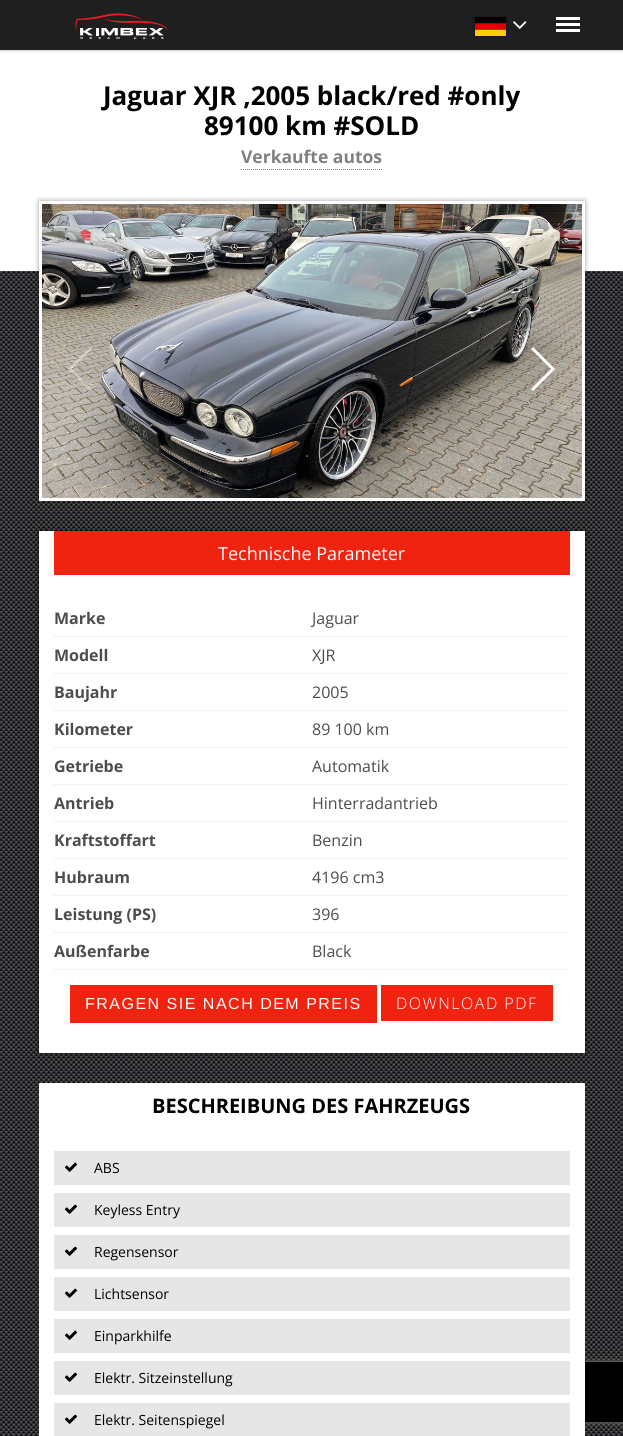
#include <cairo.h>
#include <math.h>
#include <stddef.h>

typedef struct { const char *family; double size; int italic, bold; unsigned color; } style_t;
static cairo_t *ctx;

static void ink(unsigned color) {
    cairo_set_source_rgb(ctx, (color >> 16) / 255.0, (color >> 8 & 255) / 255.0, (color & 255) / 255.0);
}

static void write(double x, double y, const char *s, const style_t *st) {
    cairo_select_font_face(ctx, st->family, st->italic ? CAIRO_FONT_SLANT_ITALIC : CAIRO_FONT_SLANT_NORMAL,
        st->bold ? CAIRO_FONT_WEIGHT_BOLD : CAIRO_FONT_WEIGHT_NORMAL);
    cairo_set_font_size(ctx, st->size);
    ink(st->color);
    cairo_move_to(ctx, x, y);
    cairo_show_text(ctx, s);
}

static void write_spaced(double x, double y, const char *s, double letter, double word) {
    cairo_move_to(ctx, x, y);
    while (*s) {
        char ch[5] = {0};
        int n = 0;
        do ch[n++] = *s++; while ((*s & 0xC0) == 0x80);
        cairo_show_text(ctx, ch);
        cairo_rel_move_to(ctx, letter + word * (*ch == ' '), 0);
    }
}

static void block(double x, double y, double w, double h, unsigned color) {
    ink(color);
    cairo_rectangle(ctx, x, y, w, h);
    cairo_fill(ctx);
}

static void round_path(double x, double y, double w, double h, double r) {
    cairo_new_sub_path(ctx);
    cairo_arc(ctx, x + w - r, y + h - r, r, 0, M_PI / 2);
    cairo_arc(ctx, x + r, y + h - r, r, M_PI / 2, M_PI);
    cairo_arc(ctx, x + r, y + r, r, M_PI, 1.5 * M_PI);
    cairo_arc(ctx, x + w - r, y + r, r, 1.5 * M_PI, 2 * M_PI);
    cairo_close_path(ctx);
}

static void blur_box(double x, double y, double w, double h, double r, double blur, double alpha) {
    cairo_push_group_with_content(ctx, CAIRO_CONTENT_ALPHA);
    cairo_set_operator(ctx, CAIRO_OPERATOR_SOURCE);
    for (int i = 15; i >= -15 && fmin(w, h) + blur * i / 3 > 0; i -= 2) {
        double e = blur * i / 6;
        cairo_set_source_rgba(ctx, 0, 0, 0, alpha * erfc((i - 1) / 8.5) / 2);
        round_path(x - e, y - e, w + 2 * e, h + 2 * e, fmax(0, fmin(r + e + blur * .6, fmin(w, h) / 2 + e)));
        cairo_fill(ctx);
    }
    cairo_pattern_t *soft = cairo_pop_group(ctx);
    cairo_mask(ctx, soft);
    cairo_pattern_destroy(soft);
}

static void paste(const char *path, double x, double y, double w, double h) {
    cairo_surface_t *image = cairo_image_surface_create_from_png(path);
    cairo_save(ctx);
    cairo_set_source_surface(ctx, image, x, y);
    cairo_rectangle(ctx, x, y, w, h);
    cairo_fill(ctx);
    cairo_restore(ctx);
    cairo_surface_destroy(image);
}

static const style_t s1 = {"Open Sans", 26, 0, 1, 0x000000};
static const style_t s2 = {"Open Sans", 17.5, 0, 1, 0x808080};
static const style_t s3 = {"Open Sans", 18, 0, 0, 0xffffff};
static const style_t s4 = {"Open Sans", 16, 0, 1, 0x4d4d4d};
static const style_t s5 = {"Open Sans", 16, 0, 0, 0x4d4d4d};
static const style_t s6 = {"Open Sans", 20, 0, 1, 0x000000};
static const style_t s7 = {"Open Sans", 14, 0, 0, 0x000000};

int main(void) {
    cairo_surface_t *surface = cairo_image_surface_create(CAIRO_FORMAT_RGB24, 623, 1436);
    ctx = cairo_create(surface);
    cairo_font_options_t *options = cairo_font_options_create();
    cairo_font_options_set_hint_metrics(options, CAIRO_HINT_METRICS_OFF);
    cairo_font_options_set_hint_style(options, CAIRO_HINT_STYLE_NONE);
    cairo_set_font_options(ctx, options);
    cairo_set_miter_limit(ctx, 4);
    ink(0xffffff);
    cairo_paint(ctx);
    ink(0x000000);
    blur_box(0, 0, 623, 50, 0, 1.5, 0.4);
    block(0, 0, 623, 50, 0x1f1f1f);
    paste("pic1.png", 75, 13, 93, 27);
    ink(0x000000);
    blur_box(475, 17, 31, 19, 0, 1.5, 0.6);
    paste("pic2.png", 475, 17, 31, 19);
    paste("pic3.png", 513, 21, 14, 8);
    block(556, 23, 24, 3, 0xffffff);
    block(556, 17, 24, 3, 0xffffff);
    block(556, 29, 24, 3, 0xffffff);
    write(103, 105, "Jaguar XJR ‚2005 black/red #only", &s1);
    write(204, 135, "89100 km #SOLD", &s1);
    cairo_new_path(ctx);
    cairo_move_to(ctx, 241, 169.5);
    cairo_line_to(ctx, 382, 169.5);
    ink(0x808080);
    cairo_set_line_width(ctx, 1);
    cairo_set_dash(ctx, (double[]){1, 1}, 2, 0);
    cairo_stroke(ctx);
    write(241, 163, "Verkaufte autos", &s2);
    paste("pic4.png", 0, 271, 623, 1165);
    ink(0x000000);
    blur_box(39, 201, 546, 300, 0, 2.5, 0.4);
    block(39, 201, 546, 300, 0xffffff);
    paste("pic5.png", 42, 204, 540, 294);
    cairo_set_source_rgba(ctx, 1, 1, 1, 0.35);
    cairo_new_path(ctx);
    cairo_move_to(ctx, 68, 369);
    cairo_line_to(ctx, 90, 347);
    cairo_line_to(ctx, 92, 349);
    cairo_line_to(ctx, 72, 369);
    cairo_line_to(ctx, 92, 389);
    cairo_line_to(ctx, 90, 391);
    cairo_close_path(ctx);
    cairo_fill(ctx);
    ink(0xffffff);
    cairo_new_path(ctx);
    cairo_move_to(ctx, 555, 369);
    cairo_line_to(ctx, 533, 391);
    cairo_line_to(ctx, 531, 389);
    cairo_line_to(ctx, 551, 369);
    cairo_line_to(ctx, 531, 349);
    cairo_line_to(ctx, 533, 347);
    cairo_close_path(ctx);
    cairo_fill(ctx);
    ink(0x000000);
    blur_box(39, 531, 546, 522, 0, 2.5, 0.6);
    block(39, 531, 546, 522, 0xffffff);
    block(54, 531, 516, 44, 0xf02311);
    write(218, 560, "Technische Parameter", &s3);
    block(311, 636, 259, 1, 0xf3f3f3);
    cairo_set_source_rgba(ctx, 0.933, 0.933, 0.933, 0.7);
    cairo_rectangle(ctx, 53, 636, 259, 1);
    cairo_fill(ctx);
    write(54, 624, "Marke", &s4);
    write(312, 624, "Jaguar", &s5);
    block(311, 673, 259, 1, 0xf3f3f3);
    cairo_set_source_rgba(ctx, 0.933, 0.933, 0.933, 0.7);
    cairo_rectangle(ctx, 53, 673, 259, 1);
    cairo_fill(ctx);
    write(54, 661, "Modell", &s4);
    write(312, 661, "XJR", &s5);
    block(311, 710, 259, 1, 0xf3f3f3);
    cairo_set_source_rgba(ctx, 0.933, 0.933, 0.933, 0.7);
    cairo_rectangle(ctx, 53, 710, 259, 1);
    cairo_fill(ctx);
    write(54, 698, "Baujahr", &s4);
    write(312, 698, "2005", &s5);
    block(311, 747, 259, 1, 0xf3f3f3);
    cairo_set_source_rgba(ctx, 0.933, 0.933, 0.933, 0.7);
    cairo_rectangle(ctx, 53, 747, 259, 1);
    cairo_fill(ctx);
    write(54, 735, "Kilometer", &s4);
    write(312, 735, "89 100 km", &s5);
    block(311, 784, 259, 1, 0xf3f3f3);
    cairo_set_source_rgba(ctx, 0.933, 0.933, 0.933, 0.7);
    cairo_rectangle(ctx, 53, 784, 259, 1);
    cairo_fill(ctx);
    write(54, 772, "Getriebe", &s4);
    write(312, 772, "Automatik", &s5);
    block(311, 821, 259, 1, 0xf3f3f3);
    cairo_set_source_rgba(ctx, 0.933, 0.933, 0.933, 0.7);
    cairo_rectangle(ctx, 53, 821, 259, 1);
    cairo_fill(ctx);
    write(54, 809, "Antrieb", &s4);
    write(312, 809, "Hinterradantrieb", &s5);
    block(311, 858, 259, 1, 0xf3f3f3);
    cairo_set_source_rgba(ctx, 0.933, 0.933, 0.933, 0.7);
    cairo_rectangle(ctx, 53, 858, 259, 1);
    cairo_fill(ctx);
    write(54, 846, "Kraftstoffart", &s4);
    write(312, 846, "Benzin", &s5);
    block(311, 895, 259, 1, 0xf3f3f3);
    cairo_set_source_rgba(ctx, 0.933, 0.933, 0.933, 0.7);
    cairo_rectangle(ctx, 53, 895, 259, 1);
    cairo_fill(ctx);
    write(54, 883, "Hubraum", &s4);
    write(312, 883, "4196 cm3", &s5);
    block(311, 932, 259, 1, 0xf3f3f3);
    cairo_set_source_rgba(ctx, 0.933, 0.933, 0.933, 0.7);
    cairo_rectangle(ctx, 53, 932, 259, 1);
    cairo_fill(ctx);
    write(54, 920, "Leistung (PS)", &s4);
    write(312, 920, "396", &s5);
    block(311, 969, 259, 1, 0xf3f3f3);
    cairo_set_source_rgba(ctx, 0.933, 0.933, 0.933, 0.7);
    cairo_rectangle(ctx, 53, 969, 259, 1);
    cairo_fill(ctx);
    write(54, 957, "Außenfarbe", &s4);
    write(312, 957, "Black", &s5);
    block(70, 985, 307, 38, 0xf02311);
    cairo_select_font_face(ctx, "Liberation Sans", CAIRO_FONT_SLANT_NORMAL, CAIRO_FONT_WEIGHT_NORMAL);
    ink(0xffffff);
    write_spaced(85, 1009, "FRAGEN SIE NACH DEM PREIS", 1.5, 0);
    block(381, 985, 172, 36, 0xf02311);
    cairo_select_font_face(ctx, "Open Sans Light", CAIRO_FONT_SLANT_NORMAL, CAIRO_FONT_WEIGHT_NORMAL);
    ink(0xffffff);
    write_spaced(396, 1009, "DOWNLOAD PDF", 1.5, 0);
    ink(0x808080);
    blur_box(553, 1362, 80, 60, 2, 2.5, 1);
    block(39, 1083, 546, 353, 0xffffff);
    write(152, 1113, "BESCHREIBUNG DES FAHRZEUGS", &s6);
    block(54, 1151, 516, 34, 0xe6e6e6);
    paste("pic6.png", 65, 1162, 12, 10);
    write(94, 1173, "ABS", &s7);
    block(54, 1193, 516, 34, 0xe6e6e6);
    paste("pic6.png", 65, 1204, 12, 10);
    write(94, 1215, "Keyless Entry", &s7);
    block(54, 1235, 516, 34, 0xe6e6e6);
    paste("pic6.png", 65, 1246, 12, 10);
    write(94, 1257, "Regensensor", &s7);
    block(54, 1277, 516, 34, 0xe6e6e6);
    paste("pic6.png", 65, 1288, 12, 10);
    write(94, 1299, "Lichtsensor", &s7);
    block(54, 1319, 516, 34, 0xe6e6e6);
    paste("pic6.png", 65, 1330, 12, 10);
    write(94, 1341, "Einparkhilfe", &s7);
    block(54, 1361, 516, 34, 0xe6e6e6);
    paste("pic6.png", 65, 1372, 12, 10);
    write(94, 1383, "Elektr. Sitzeinstellung", &s7);
    block(54, 1403, 516, 33, 0xe6e6e6);
    paste("pic6.png", 65, 1414, 12, 10);
    write(94, 1425, "Elektr. Seitenspiegel", &s7);
    block(585, 1362, 38, 60, 0x000000);
    cairo_surface_write_to_png(surface, "screenshot.png");
    cairo_font_options_destroy(options);
    cairo_destroy(ctx);
    cairo_surface_destroy(surface);
    return 0;
}
